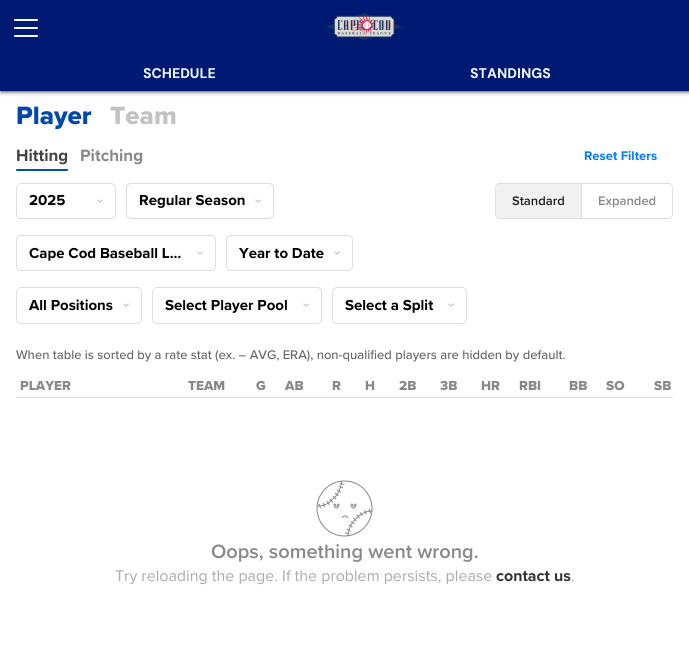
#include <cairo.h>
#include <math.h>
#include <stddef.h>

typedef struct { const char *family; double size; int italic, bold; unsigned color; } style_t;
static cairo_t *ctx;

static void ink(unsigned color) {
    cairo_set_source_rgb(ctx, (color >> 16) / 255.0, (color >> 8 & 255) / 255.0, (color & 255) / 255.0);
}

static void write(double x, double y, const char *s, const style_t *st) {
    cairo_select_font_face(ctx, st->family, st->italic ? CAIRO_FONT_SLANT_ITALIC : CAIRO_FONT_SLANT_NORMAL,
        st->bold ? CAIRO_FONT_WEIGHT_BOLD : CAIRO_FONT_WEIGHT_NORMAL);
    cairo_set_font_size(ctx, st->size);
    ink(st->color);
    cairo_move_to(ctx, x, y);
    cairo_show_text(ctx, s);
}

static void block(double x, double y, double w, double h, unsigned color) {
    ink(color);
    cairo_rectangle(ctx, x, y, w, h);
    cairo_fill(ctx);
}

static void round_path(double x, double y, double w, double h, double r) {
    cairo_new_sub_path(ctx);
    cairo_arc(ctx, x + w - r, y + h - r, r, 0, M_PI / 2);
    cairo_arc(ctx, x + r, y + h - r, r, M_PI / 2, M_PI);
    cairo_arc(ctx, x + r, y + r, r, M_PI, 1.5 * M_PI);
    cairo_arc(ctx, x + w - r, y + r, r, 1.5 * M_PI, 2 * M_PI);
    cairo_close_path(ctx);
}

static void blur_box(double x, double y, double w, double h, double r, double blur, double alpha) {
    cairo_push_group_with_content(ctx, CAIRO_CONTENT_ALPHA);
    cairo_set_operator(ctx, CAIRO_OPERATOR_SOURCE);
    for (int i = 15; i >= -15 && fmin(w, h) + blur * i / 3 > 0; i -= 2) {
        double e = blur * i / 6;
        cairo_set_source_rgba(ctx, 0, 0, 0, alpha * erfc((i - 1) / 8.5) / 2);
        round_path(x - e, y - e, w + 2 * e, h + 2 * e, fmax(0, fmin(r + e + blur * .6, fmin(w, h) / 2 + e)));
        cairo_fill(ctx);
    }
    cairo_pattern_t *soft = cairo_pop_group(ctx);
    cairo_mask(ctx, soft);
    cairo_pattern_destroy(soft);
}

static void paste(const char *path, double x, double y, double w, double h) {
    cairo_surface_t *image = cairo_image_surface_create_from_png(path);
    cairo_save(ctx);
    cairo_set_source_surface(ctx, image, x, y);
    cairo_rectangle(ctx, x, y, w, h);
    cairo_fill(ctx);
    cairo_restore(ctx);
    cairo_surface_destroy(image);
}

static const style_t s1 = {"DM Sans", 14, 0, 1, 0xf4f9ff};
static const style_t s2 = {"Proxima Nova ExtraBold", 26, 0, 0, 0x0048ab};
static const style_t s3 = {"Proxima Nova ExtraBold", 26, 0, 0, 0xc2c2c2};
static const style_t s4 = {"Proxima Nova", 17, 0, 1, 0x414141};
static const style_t s5 = {"Proxima Nova", 17, 0, 1, 0x888888};
static const style_t s6 = {"Proxima Nova", 13, 0, 1, 0x057aff};
static const style_t s7 = {"Proxima Nova", 15, 0, 1, 0x000000};
static const style_t s8 = {"Proxima Nova SemiBold", 13, 0, 0, 0x222222};
static const style_t s9 = {"Proxima Nova SemiBold", 13, 0, 0, 0x888888};
static const style_t s10 = {"Proxima Nova Medium", 13, 0, 0, 0x666666};
static const style_t s11 = {"Proxima Nova ExtraBold", 13.5, 0, 0, 0x888888};
static const style_t s12 = {"Proxima Nova SemiBold", 20, 0, 0, 0x888888};
static const style_t s13 = {"Proxima Nova", 16, 0, 0, 0xaaaaaa};
static const style_t s14 = {"Proxima Nova", 16, 0, 1, 0x333333};

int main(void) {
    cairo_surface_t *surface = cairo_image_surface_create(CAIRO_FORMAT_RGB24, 689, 648);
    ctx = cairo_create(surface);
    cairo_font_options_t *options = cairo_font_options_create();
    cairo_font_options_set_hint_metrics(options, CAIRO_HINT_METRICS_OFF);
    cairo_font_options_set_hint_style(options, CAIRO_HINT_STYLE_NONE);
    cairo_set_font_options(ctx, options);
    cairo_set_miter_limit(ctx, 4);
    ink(0xffffff);
    cairo_paint(ctx);
    ink(0x000000);
    blur_box(1, 0, 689, 91, 0, 2.5, 1);
    block(0, 0, 689, 91, 0x001a74);
    ink(0xf4f9ff);
    round_path(14, 19, 24, 2, 1);
    cairo_fill(ctx);
    round_path(14, 27, 24, 2, 1);
    cairo_fill(ctx);
    round_path(14, 35, 24, 2, 1);
    cairo_fill(ctx);
    paste("pic1.png", 326, 13, 76, 27);
    write(143, 78, "SCHEDULE", &s1);
    write(470, 78, "STANDINGS", &s1);
    write(16, 124, "Player", &s2);
    write(110, 124, "Team", &s3);
    write(16, 161, "Hitting", &s4);
    ink(0x00519f);
    round_path(16, 169, 52, 2, 1);
    cairo_fill(ctx);
    write(80, 161, "Pitching", &s5);
    write(584, 160, "Reset Filters", &s6);
    round_path(16.5, 183.5, 99, 35, 4.5);
    ink(0xdddddd);
    cairo_set_line_width(ctx, 1);
    cairo_stroke(ctx);
    write(29, 205, "2025", &s7);
    paste("pic2.png", 97, 199, 6, 4);
    round_path(126.5, 183.5, 147, 35, 4.5);
    ink(0xdddddd);
    cairo_stroke(ctx);
    write(139, 205, "Regular Season", &s7);
    paste("pic2.png", 255, 199, 6, 4);
    round_path(16.5, 235.5, 199, 35, 4.5);
    ink(0xdddddd);
    cairo_stroke(ctx);
    write(29, 258, "Cape Cod Baseball L…", &s7);
    paste("pic2.png", 197, 251, 6, 4);
    round_path(226.5, 235.5, 126, 35, 4.5);
    ink(0xdddddd);
    cairo_stroke(ctx);
    write(239, 258, "Year to Date", &s7);
    paste("pic2.png", 334, 251, 6, 4);
    round_path(16.5, 287.5, 125, 36, 4.5);
    ink(0xdddddd);
    cairo_stroke(ctx);
    write(29, 310, "All Positions", &s7);
    paste("pic2.png", 123, 303, 6, 4);
    round_path(152.5, 287.5, 169, 36, 4.5);
    ink(0xdddddd);
    cairo_stroke(ctx);
    write(165, 310, "Select Player Pool", &s7);
    paste("pic2.png", 303, 303, 6, 4);
    round_path(332.5, 287.5, 134, 36, 4.5);
    ink(0xdddddd);
    cairo_stroke(ctx);
    write(345, 310, "Select a Split", &s7);
    paste("pic2.png", 448, 303, 6, 4);
    round_path(495.5, 183.5, 177, 35, 4.5);
    ink(0xdddddd);
    cairo_stroke(ctx);
    block(581, 184, 1, 34, 0xdddddd);
    cairo_set_source_rgba(ctx, 0.867, 0.867, 0.867, 0.42);
    cairo_new_path(ctx);
    cairo_move_to(ctx, 500, 184);
    cairo_line_to(ctx, 581, 184);
    cairo_line_to(ctx, 581, 218);
    cairo_line_to(ctx, 500, 218);
    cairo_curve_to(ctx, 498, 218, 496, 216, 496, 214);
    cairo_line_to(ctx, 496, 188);
    cairo_curve_to(ctx, 496, 186, 498, 184, 500, 184);
    cairo_close_path(ctx);
    cairo_fill(ctx);
    write(512, 205, "Standard", &s8);
    ink(0xffffff);
    cairo_new_path(ctx);
    cairo_move_to(ctx, 582, 184);
    cairo_line_to(ctx, 668, 184);
    cairo_curve_to(ctx, 670, 184, 672, 186, 672, 188);
    cairo_line_to(ctx, 672, 214);
    cairo_curve_to(ctx, 672, 216, 670, 218, 668, 218);
    cairo_line_to(ctx, 582, 218);
    cairo_close_path(ctx);
    cairo_fill(ctx);
    write(598, 205, "Expanded", &s9);
    write(16, 359, "When table is sorted by a rate stat (ex. – AVG, ERA), non-qualified players are hidden by default.", &s10);
    block(16, 397, 657, 1, 0xdfdfdf);
    write(20, 390, "PLAYER", &s11);
    write(188, 390, "TEAM", &s11);
    write(256, 390, "G", &s11);
    write(285, 390, "AB", &s11);
    write(332, 390, "R", &s11);
    write(365, 390, "H", &s11);
    write(399, 390, "2B", &s11);
    write(440, 390, "3B", &s11);
    write(481, 390, "HR", &s11);
    write(519, 390, "RBI", &s11);
    write(569, 390, "BB", &s11);
    write(606, 390, "SO", &s11);
    write(654, 390, "SB", &s11);
    paste("pic3.png", 316, 480, 57, 57);
    write(211, 558, "Oops, something went wrong.", &s12);
    write(115, 581, "Try reloading the page. If the problem persists, please", &s13);
    write(496, 581, "contact us", &s14);
    write(571, 581, ".", &s13);
    cairo_surface_write_to_png(surface, "screenshot.png");
    cairo_font_options_destroy(options);
    cairo_destroy(ctx);
    cairo_surface_destroy(surface);
    return 0;
}
